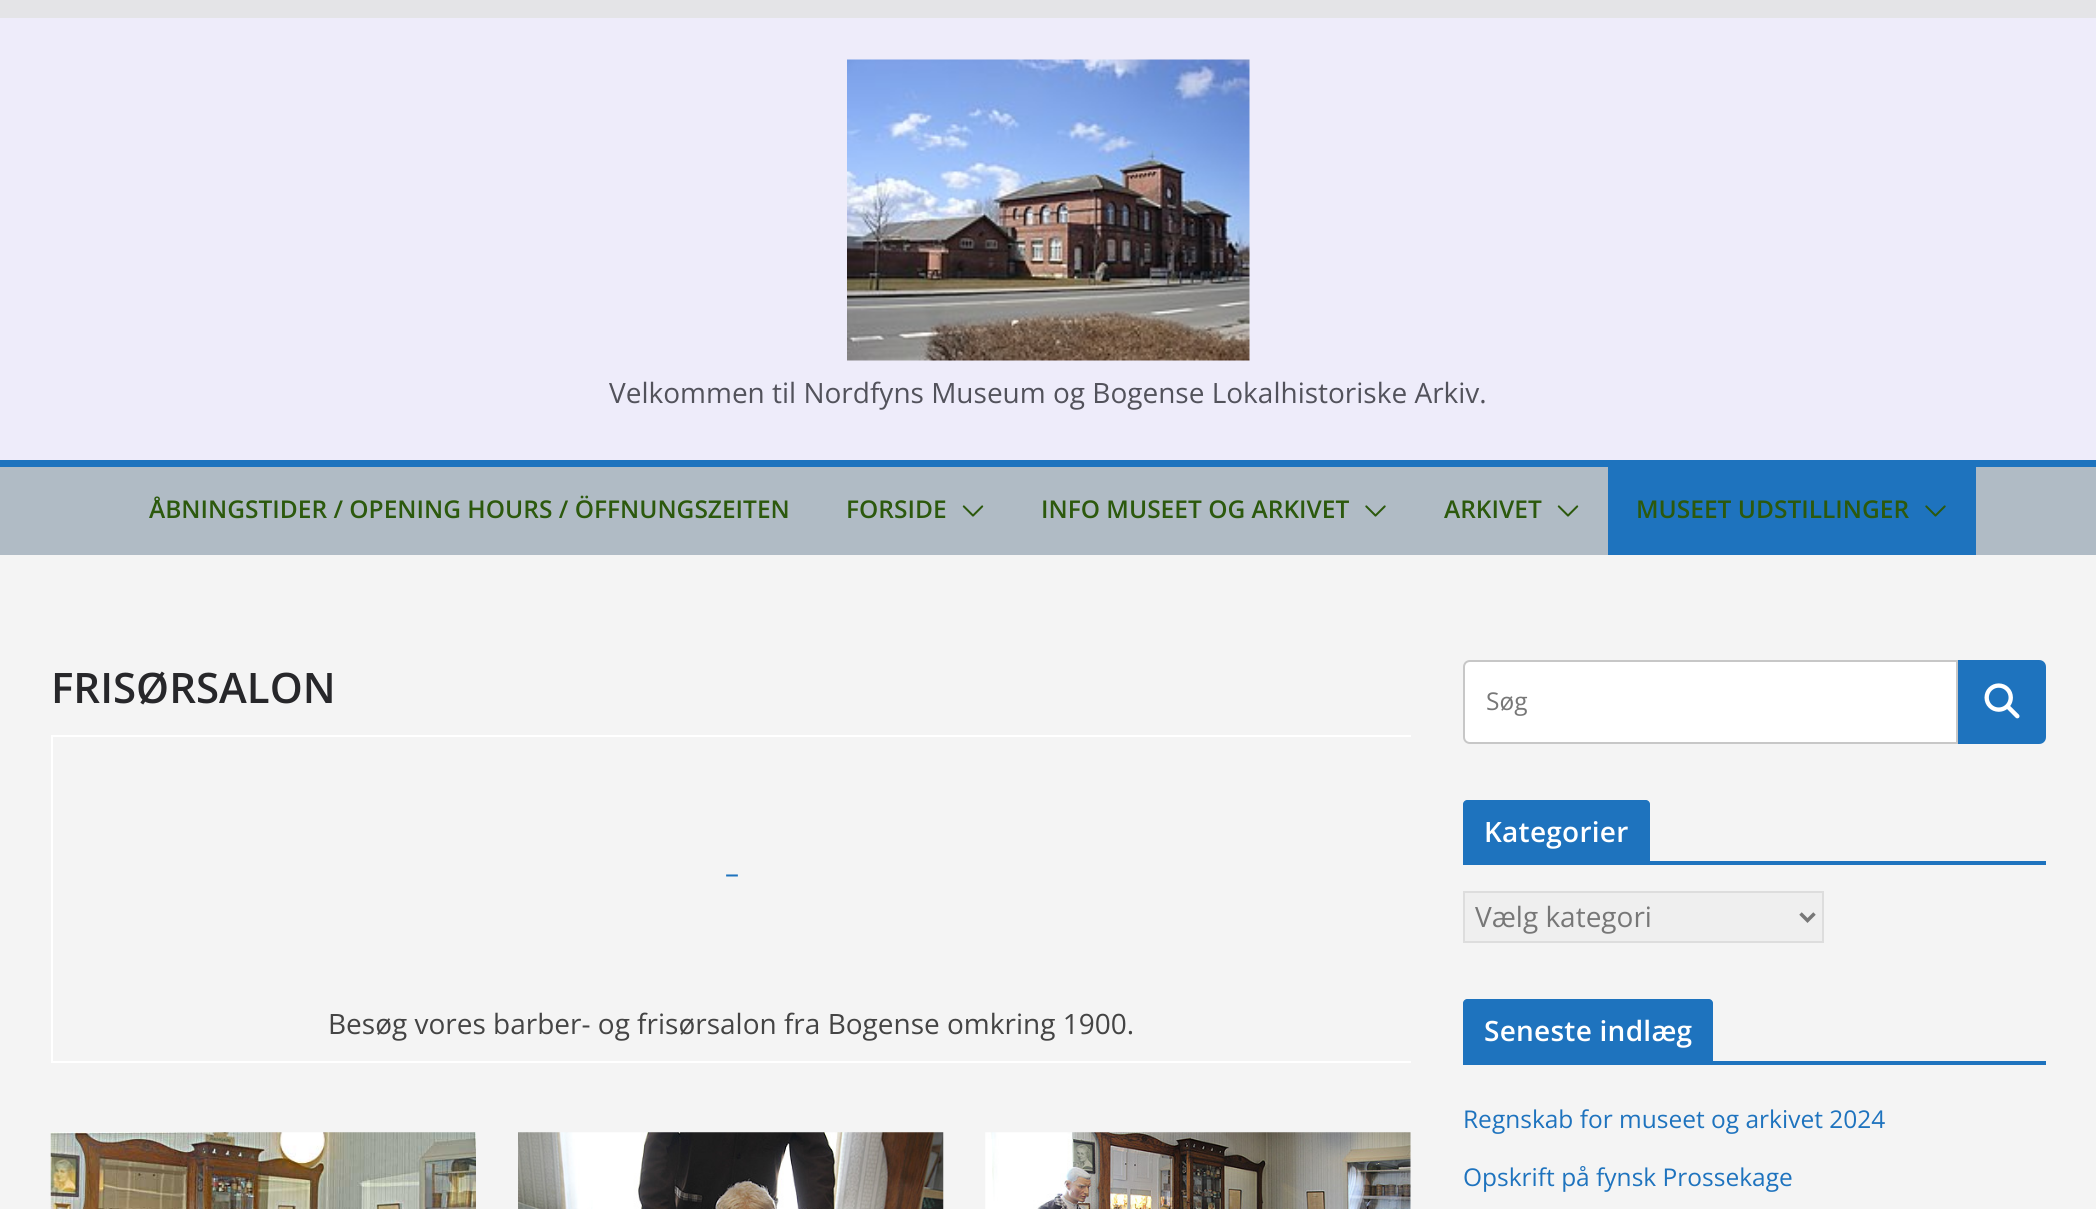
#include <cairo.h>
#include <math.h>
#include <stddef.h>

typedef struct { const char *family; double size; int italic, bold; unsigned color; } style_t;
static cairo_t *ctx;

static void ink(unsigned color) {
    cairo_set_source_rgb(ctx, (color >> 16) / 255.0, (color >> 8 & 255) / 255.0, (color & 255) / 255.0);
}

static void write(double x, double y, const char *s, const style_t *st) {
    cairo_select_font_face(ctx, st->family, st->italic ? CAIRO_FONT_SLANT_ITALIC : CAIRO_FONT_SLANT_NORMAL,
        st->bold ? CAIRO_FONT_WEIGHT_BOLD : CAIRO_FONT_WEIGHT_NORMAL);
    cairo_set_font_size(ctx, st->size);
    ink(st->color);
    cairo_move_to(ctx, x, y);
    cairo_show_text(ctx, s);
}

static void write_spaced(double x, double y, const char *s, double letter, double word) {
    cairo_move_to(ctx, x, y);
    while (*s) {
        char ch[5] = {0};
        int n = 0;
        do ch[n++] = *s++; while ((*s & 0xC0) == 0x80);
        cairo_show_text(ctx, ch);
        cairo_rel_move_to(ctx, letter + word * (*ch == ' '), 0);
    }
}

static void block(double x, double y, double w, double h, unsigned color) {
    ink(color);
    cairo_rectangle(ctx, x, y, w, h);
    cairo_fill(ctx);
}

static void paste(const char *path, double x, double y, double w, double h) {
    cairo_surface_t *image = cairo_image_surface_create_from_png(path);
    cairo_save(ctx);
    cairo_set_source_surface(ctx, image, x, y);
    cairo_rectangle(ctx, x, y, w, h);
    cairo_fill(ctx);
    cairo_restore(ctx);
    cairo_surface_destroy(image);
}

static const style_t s1 = {"Open Sans", 28, 0, 0, 0x52525b};
static const style_t s2 = {"Open Sans SemiBold", 24.5, 0, 0, 0x2c590d};
static const style_t s3 = {"Open Sans SemiBold", 42, 0, 0, 0x27272a};
static const style_t s4 = {"Open Sans", 28, 0, 0, 0x1e73be};
static const style_t s5 = {"Open Sans", 28, 0, 0, 0x444444};
static const style_t s6 = {"Open Sans", 24.5, 0, 0, 0x777777};
static const style_t s7 = {"Open Sans", 28, 0, 0, 0x777777};
static const style_t s8 = {"Open Sans", 24.5, 0, 0, 0x1e73be};

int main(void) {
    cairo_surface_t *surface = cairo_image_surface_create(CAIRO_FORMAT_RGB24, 2096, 1209);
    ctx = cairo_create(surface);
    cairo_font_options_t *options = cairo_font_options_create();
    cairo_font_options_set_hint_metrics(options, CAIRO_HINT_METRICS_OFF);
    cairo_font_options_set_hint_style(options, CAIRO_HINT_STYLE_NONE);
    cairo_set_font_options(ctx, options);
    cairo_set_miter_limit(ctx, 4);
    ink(0xe4e4e7);
    cairo_paint(ctx);
    block(0, 18, 2096, 442, 0xeeecfa);
    paste("pic1.png", 847, 59, 403, 302);
    write(609, 403, "Velkommen til Nordfyns Museum og Bogense Lokalhistoriske Arkiv.", &s1);
    block(0, 467, 2096, 88, 0xb0bbc5);
    block(0, 460, 2096, 7, 0x1e73be);
    write(149, 518, "ÅBNINGSTIDER / OPENING HOURS / ÖFFNUNGSZEITEN", &s2);
    write(846, 518, "FORSIDE", &s2);
    paste("pic2.png", 962, 505, 22, 12);
    write(1041, 518, "INFO MUSEET OG ARKIVET", &s2);
    paste("pic3.png", 1365, 505, 21, 12);
    write(1444, 518, "ARKIVET", &s2);
    paste("pic2.png", 1557, 505, 22, 12);
    block(1608, 467, 368, 88, 0x1e73be);
    write(1636, 518, "MUSEET UDSTILLINGER", &s2);
    paste("pic4.png", 1925, 505, 21, 12);
    block(0, 555, 2096, 654, 0xf4f4f4);
    write(51, 703, "FRISØRSALON", &s3);
    block(51, 735, 1360, 2, 0xffffff);
    block(51, 1061, 1360, 2, 0xffffff);
    block(51, 735, 2, 327, 0xffffff);
    write(725, 883, "–", &s4);
    write(328, 1034, "Besøg vores barber- og frisørsalon fra Bogense omkring 1900.", &s5);
    paste("pic5.png", 50, 1132, 426, 77);
    paste("pic6.png", 518, 1132, 426, 77);
    paste("pic7.png", 985, 1132, 426, 77);
    ink(0xffffff);
    cairo_new_path(ctx);
    cairo_move_to(ctx, 1470, 661);
    cairo_line_to(ctx, 1957, 661);
    cairo_line_to(ctx, 1957, 743);
    cairo_line_to(ctx, 1470, 743);
    cairo_curve_to(ctx, 1466.5, 743, 1464, 740.5, 1464, 737);
    cairo_line_to(ctx, 1464, 667);
    cairo_curve_to(ctx, 1464, 663.5, 1466.5, 661, 1470, 661);
    cairo_close_path(ctx);
    cairo_fill_preserve(ctx);
    ink(0xc7c7c7);
    cairo_stroke(ctx);
    write(1486, 710, "Søg", &s6);
    ink(0x1e73be);
    cairo_new_path(ctx);
    cairo_move_to(ctx, 1959, 661);
    cairo_line_to(ctx, 2039, 661);
    cairo_curve_to(ctx, 2042.5, 661, 2045, 663.5, 2045, 667);
    cairo_line_to(ctx, 2045, 737);
    cairo_curve_to(ctx, 2045, 740.5, 2042.5, 743, 2039, 743);
    cairo_line_to(ctx, 1959, 743);
    cairo_close_path(ctx);
    cairo_fill_preserve(ctx);
    cairo_stroke(ctx);
    paste("pic8.png", 1984, 683, 36, 36);
    block(1463, 861, 583, 4, 0x1e73be);
    cairo_new_path(ctx);
    cairo_move_to(ctx, 1467, 800);
    cairo_line_to(ctx, 1646, 800);
    cairo_curve_to(ctx, 1648, 800, 1650, 802, 1650, 804);
    cairo_line_to(ctx, 1650, 861);
    cairo_line_to(ctx, 1463, 861);
    cairo_line_to(ctx, 1463, 804);
    cairo_curve_to(ctx, 1463, 802, 1465, 800, 1467, 800);
    cairo_close_path(ctx);
    cairo_fill(ctx);
    cairo_select_font_face(ctx, "Open Sans SemiBold", CAIRO_FONT_SLANT_NORMAL, CAIRO_FONT_WEIGHT_NORMAL);
    cairo_set_font_size(ctx, 28);
    ink(0xffffff);
    write_spaced(1484, 842, "Kategorier", 0.25, 0);
    ink(0xefefef);
    cairo_rectangle(ctx, 1464, 892, 359, 50);
    cairo_fill_preserve(ctx);
    ink(0xdddddd);
    cairo_stroke(ctx);
    cairo_new_path(ctx);
    cairo_move_to(ctx, 1800.5, 913.5);
    cairo_line_to(ctx, 1807.5, 920.5);
    cairo_line_to(ctx, 1814.5, 913.5);
    ink(0x777777);
    cairo_set_line_width(ctx, 3.5);
    cairo_stroke(ctx);
    write(1475, 927, "Vælg kategori", &s7);
    block(1463, 1061, 583, 4, 0x1e73be);
    cairo_new_path(ctx);
    cairo_move_to(ctx, 1467, 999);
    cairo_line_to(ctx, 1709, 999);
    cairo_curve_to(ctx, 1711, 999, 1713, 1001, 1713, 1003);
    cairo_line_to(ctx, 1713, 1061);
    cairo_line_to(ctx, 1463, 1061);
    cairo_line_to(ctx, 1463, 1003);
    cairo_curve_to(ctx, 1463, 1001, 1465, 999, 1467, 999);
    cairo_close_path(ctx);
    cairo_fill(ctx);
    cairo_select_font_face(ctx, "Open Sans SemiBold", CAIRO_FONT_SLANT_NORMAL, CAIRO_FONT_WEIGHT_NORMAL);
    ink(0xffffff);
    write_spaced(1484, 1041, "Seneste indlæg", 0.25, 0);
    write(1463, 1128, "Regnskab for museet og arkivet 2024", &s8);
    write(1463, 1186, "Opskrift på fynsk Prossekage", &s8);
    cairo_surface_write_to_png(surface, "screenshot.png");
    cairo_font_options_destroy(options);
    cairo_destroy(ctx);
    cairo_surface_destroy(surface);
    return 0;
}
